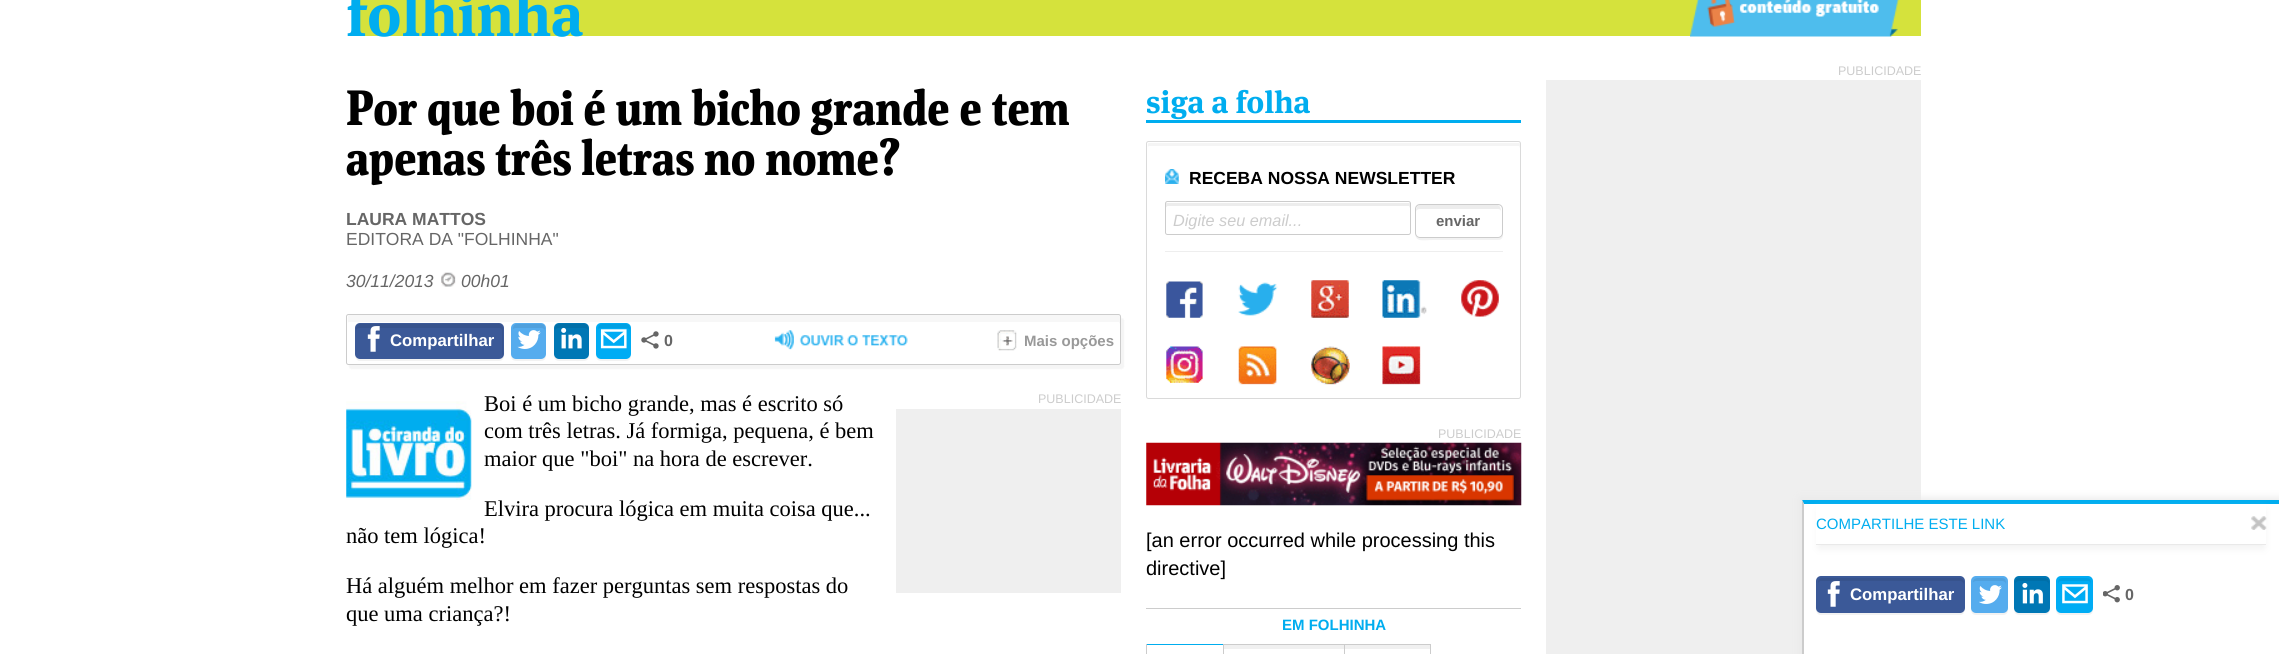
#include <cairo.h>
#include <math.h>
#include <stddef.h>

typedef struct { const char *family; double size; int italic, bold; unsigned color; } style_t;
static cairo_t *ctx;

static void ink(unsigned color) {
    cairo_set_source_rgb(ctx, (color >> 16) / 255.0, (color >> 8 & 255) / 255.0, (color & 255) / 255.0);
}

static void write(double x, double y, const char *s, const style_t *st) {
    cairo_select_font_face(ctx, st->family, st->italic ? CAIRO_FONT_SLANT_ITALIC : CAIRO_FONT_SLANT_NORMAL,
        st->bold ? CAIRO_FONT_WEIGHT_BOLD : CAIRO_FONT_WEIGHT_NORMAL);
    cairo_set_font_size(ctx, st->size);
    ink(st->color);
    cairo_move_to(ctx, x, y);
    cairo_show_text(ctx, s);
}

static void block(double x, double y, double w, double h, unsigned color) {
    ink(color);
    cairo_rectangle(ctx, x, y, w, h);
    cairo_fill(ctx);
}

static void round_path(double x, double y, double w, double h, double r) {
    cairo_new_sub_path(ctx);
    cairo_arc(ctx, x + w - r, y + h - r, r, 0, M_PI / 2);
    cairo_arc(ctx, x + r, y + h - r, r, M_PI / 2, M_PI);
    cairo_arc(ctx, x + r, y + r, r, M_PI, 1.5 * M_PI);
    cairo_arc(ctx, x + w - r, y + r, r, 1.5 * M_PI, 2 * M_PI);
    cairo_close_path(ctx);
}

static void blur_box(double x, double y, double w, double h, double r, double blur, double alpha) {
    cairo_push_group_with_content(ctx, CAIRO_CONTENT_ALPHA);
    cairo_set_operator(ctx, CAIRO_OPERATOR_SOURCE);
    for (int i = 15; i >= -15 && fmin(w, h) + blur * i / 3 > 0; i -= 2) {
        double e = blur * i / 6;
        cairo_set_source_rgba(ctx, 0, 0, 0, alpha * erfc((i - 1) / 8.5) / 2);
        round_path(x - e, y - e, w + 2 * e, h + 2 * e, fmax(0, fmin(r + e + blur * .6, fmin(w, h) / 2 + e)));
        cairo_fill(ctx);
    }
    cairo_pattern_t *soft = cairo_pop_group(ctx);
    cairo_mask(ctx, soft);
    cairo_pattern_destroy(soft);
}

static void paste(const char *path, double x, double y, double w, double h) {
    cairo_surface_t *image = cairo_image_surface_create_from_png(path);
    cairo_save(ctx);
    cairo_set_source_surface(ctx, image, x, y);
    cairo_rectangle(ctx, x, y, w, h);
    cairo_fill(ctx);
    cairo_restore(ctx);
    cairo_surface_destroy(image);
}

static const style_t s1 = {"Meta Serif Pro", 60, 0, 1, 0x00adef};
static const style_t s2 = {"Liberation Sans", 12.5, 0, 0, 0xcccccc};
static const style_t s3 = {"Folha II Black", 50, 0, 0, 0x000000};
static const style_t s4 = {"Liberation Sans", 17.5, 0, 1, 0x666666};
static const style_t s5 = {"Liberation Sans", 17.5, 0, 0, 0x666666};
static const style_t s6 = {"Liberation Sans", 17.5, 1, 0, 0x666666};
static const style_t s7 = {"Liberation Sans", 16.75, 0, 1, 0xffffff};
static const style_t s8 = {"Liberation Sans", 16, 0, 1, 0x666666};
static const style_t s9 = {"Liberation Sans", 15, 0, 1, 0x999999};
static const style_t s10 = {"Liberation Serif", 22.5, 0, 0, 0x000000};
static const style_t s11 = {"Meta Serif Pro", 31.25, 0, 1, 0x00adef};
static const style_t s12 = {"Liberation Sans", 17.5, 0, 1, 0x000000};
static const style_t s13 = {"Liberation Sans", 16.25, 1, 0, 0xcccccc};
static const style_t s14 = {"Liberation Sans", 15, 0, 1, 0x666666};
static const style_t s15 = {"Liberation Sans", 20, 0, 0, 0x000000};
static const style_t s16 = {"Liberation Sans", 15, 0, 1, 0x00adef};
static const style_t s17 = {"Liberation Sans", 15, 0, 0, 0x00adef};

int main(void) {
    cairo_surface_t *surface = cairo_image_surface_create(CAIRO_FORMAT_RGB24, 2279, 654);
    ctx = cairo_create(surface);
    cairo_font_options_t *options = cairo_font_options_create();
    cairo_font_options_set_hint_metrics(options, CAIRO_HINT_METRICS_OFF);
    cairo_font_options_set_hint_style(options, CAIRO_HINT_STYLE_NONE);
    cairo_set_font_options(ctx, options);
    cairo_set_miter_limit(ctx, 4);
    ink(0xffffff);
    cairo_paint(ctx);
    block(356, 0, 1565, 36, 0xd5e23c);
    write(346, 36, "folhinha", &s1);
    paste("pic1.png", 1690, 0, 209, 37);
    block(1546, 80, 375, 574, 0xefefef);
    write(1838, 75, "PUBLICIDADE", &s2);
    write(346, 125, "Por que boi é um bicho grande e tem", &s3);
    write(346, 175, "apenas três letras no nome?", &s3);
    write(346, 225, "LAURA MATTOS", &s4);
    write(346, 245, "EDITORA DA \"FOLHINHA\"", &s5);
    write(346, 287, "30/11/2013", &s6);
    paste("pic2.png", 441, 272, 15, 15);
    write(461, 287, "00h01", &s6);
    cairo_save(ctx);
    cairo_set_fill_rule(ctx, CAIRO_FILL_RULE_EVEN_ODD);
    cairo_new_path(ctx);
    cairo_move_to(ctx, 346, 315);
    cairo_line_to(ctx, 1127, 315);
    cairo_line_to(ctx, 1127, 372);
    cairo_line_to(ctx, 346, 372);
    cairo_close_path(ctx);
    cairo_move_to(ctx, 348.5, 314);
    cairo_line_to(ctx, 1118.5, 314);
    cairo_curve_to(ctx, 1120, 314, 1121, 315, 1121, 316.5);
    cairo_line_to(ctx, 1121, 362.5);
    cairo_curve_to(ctx, 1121, 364, 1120, 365, 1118.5, 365);
    cairo_line_to(ctx, 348.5, 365);
    cairo_curve_to(ctx, 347, 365, 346, 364, 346, 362.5);
    cairo_line_to(ctx, 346, 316.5);
    cairo_curve_to(ctx, 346, 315, 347, 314, 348.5, 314);
    cairo_close_path(ctx);
    cairo_clip(ctx);
    ink(0x000000);
    blur_box(349, 318, 775, 51, 2.5, 0.5, 0.04);
    cairo_restore(ctx);
    ink(0xf7f7f7);
    cairo_new_path(ctx);
    cairo_move_to(ctx, 349, 322);
    cairo_line_to(ctx, 1119, 322);
    cairo_line_to(ctx, 1120, 324);
    cairo_curve_to(ctx, 1120, 323, 1121, 316, 1119, 315);
    cairo_line_to(ctx, 349, 315);
    cairo_curve_to(ctx, 347, 315, 348, 323, 348, 324);
    cairo_curve_to(ctx, 348, 323, 348, 322, 349, 322);
    cairo_close_path(ctx);
    cairo_fill(ctx);
    round_path(346.5, 314.5, 774, 50, 2);
    ink(0xcccccc);
    cairo_set_line_width(ctx, 1);
    cairo_stroke(ctx);
    ink(0xf2f2f2);
    cairo_new_path(ctx);
    cairo_move_to(ctx, 355, 354);
    cairo_curve_to(ctx, 355, 357, 356, 361, 360, 361);
    cairo_line_to(ctx, 499, 361);
    cairo_curve_to(ctx, 506, 361, 504, 351, 504, 347);
    cairo_line_to(ctx, 504, 328);
    cairo_line_to(ctx, 504, 354);
    cairo_curve_to(ctx, 504, 357, 502, 359, 499, 359);
    cairo_line_to(ctx, 360, 359);
    cairo_curve_to(ctx, 357, 359, 355, 357, 355, 354);
    cairo_close_path(ctx);
    cairo_fill(ctx);
    ink(0x3b5998);
    round_path(355, 323, 149, 36, 5);
    cairo_fill(ctx);
    ink(0x37538d);
    cairo_new_path(ctx);
    cairo_move_to(ctx, 360, 328);
    cairo_line_to(ctx, 499, 328);
    cairo_curve_to(ctx, 501, 328, 502, 329, 502, 331);
    cairo_line_to(ctx, 502, 357);
    cairo_curve_to(ctx, 503, 356, 503, 355, 503, 354);
    cairo_line_to(ctx, 503, 328);
    cairo_curve_to(ctx, 503, 326, 501, 324, 499, 324);
    cairo_line_to(ctx, 360, 324);
    cairo_curve_to(ctx, 358, 324, 356, 326, 356, 328);
    cairo_line_to(ctx, 356, 331);
    cairo_curve_to(ctx, 356, 329, 358, 328, 360, 328);
    cairo_close_path(ctx);
    cairo_fill(ctx);
    paste("pic3.png", 367, 326, 13, 26);
    write(390, 346, "Compartilhar", &s7);
    ink(0xf2f2f2);
    cairo_new_path(ctx);
    cairo_move_to(ctx, 511, 328.5);
    cairo_line_to(ctx, 511, 343);
    cairo_curve_to(ctx, 511, 363, 508.5, 361, 528.5, 361);
    cairo_line_to(ctx, 537, 361);
    cairo_curve_to(ctx, 541.5, 361, 546, 361.5, 546, 355.5);
    cairo_curve_to(ctx, 545.5, 357.5, 543.5, 359, 541, 359);
    cairo_line_to(ctx, 516, 359);
    cairo_curve_to(ctx, 513.5, 359, 511, 356.5, 511, 354);
    cairo_close_path(ctx);
    cairo_fill(ctx);
    ink(0x55acee);
    round_path(511, 323, 35, 36, 5);
    cairo_fill(ctx);
    ink(0x4fa0dd);
    cairo_new_path(ctx);
    cairo_move_to(ctx, 516, 328);
    cairo_line_to(ctx, 541, 328);
    cairo_curve_to(ctx, 543, 328, 545, 329, 545, 331);
    cairo_curve_to(ctx, 545, 324, 544, 324, 537, 324);
    cairo_line_to(ctx, 521, 324);
    cairo_curve_to(ctx, 516.5, 324, 513, 323.5, 513, 329);
    cairo_curve_to(ctx, 514, 328.5, 515, 328, 516, 328);
    cairo_close_path(ctx);
    cairo_fill(ctx);
    paste("pic4.png", 517, 330, 24, 19);
    ink(0xf2f2f2);
    cairo_new_path(ctx);
    cairo_move_to(ctx, 554, 355.5);
    cairo_curve_to(ctx, 554, 361.5, 558.5, 361, 563, 361);
    cairo_line_to(ctx, 571.5, 361);
    cairo_curve_to(ctx, 591.5, 361, 589, 363, 589, 343);
    cairo_line_to(ctx, 589, 328.5);
    cairo_line_to(ctx, 589, 354);
    cairo_curve_to(ctx, 589, 356.5, 586.5, 359, 584, 359);
    cairo_line_to(ctx, 559, 359);
    cairo_curve_to(ctx, 556.5, 359, 554.5, 357.5, 554, 355.5);
    cairo_close_path(ctx);
    cairo_fill(ctx);
    ink(0x0077b5);
    round_path(554, 323, 35, 36, 5);
    cairo_fill(ctx);
    ink(0x006fa8);
    cairo_new_path(ctx);
    cairo_move_to(ctx, 559, 328);
    cairo_line_to(ctx, 584, 328);
    cairo_curve_to(ctx, 586, 328, 588, 329, 588, 331);
    cairo_curve_to(ctx, 588, 324, 587, 324, 580, 324);
    cairo_line_to(ctx, 563, 324);
    cairo_curve_to(ctx, 556, 324, 555, 324, 555, 331);
    cairo_curve_to(ctx, 555, 329, 557, 328, 559, 328);
    cairo_close_path(ctx);
    cairo_fill(ctx);
    paste("pic5.png", 561, 327, 21, 22);
    ink(0xf2f2f2);
    cairo_new_path(ctx);
    cairo_move_to(ctx, 596, 328.5);
    cairo_line_to(ctx, 596, 343);
    cairo_curve_to(ctx, 596, 363, 593.5, 361, 613.5, 361);
    cairo_line_to(ctx, 622, 361);
    cairo_curve_to(ctx, 626.5, 361, 631, 361.5, 631, 355.5);
    cairo_curve_to(ctx, 630.5, 357.5, 628.5, 359, 626, 359);
    cairo_line_to(ctx, 601, 359);
    cairo_curve_to(ctx, 598.5, 359, 596, 356.5, 596, 354);
    cairo_close_path(ctx);
    cairo_fill(ctx);
    ink(0x00acf4);
    round_path(596, 323, 35, 36, 5);
    cairo_fill(ctx);
    ink(0x00a0e3);
    cairo_new_path(ctx);
    cairo_move_to(ctx, 601, 328);
    cairo_line_to(ctx, 626, 328);
    cairo_curve_to(ctx, 628, 328, 630, 329, 630, 331);
    cairo_curve_to(ctx, 630, 324, 629, 324, 622, 324);
    cairo_line_to(ctx, 606, 324);
    cairo_curve_to(ctx, 599, 324, 598, 324, 598, 331);
    cairo_curve_to(ctx, 598, 329, 599, 328, 601, 328);
    cairo_close_path(ctx);
    cairo_fill(ctx);
    paste("pic6.png", 600, 329, 27, 20);
    paste("pic7.png", 641, 331, 18, 18);
    write(664, 346, "0", &s8);
    paste("pic8.png", 774, 330, 134, 20);
    paste("pic9.png", 997, 330, 20, 21);
    write(1024, 346, "Mais opções", &s9);
    paste("pic10.png", 346, 401, 126, 99);
    write(484, 411, "Boi é um bicho grande, mas é escrito só", &s10);
    write(484, 438, "com três letras. Já formiga, pequena, é bem", &s10);
    write(484, 466, "maior que \"boi\" na hora de escrever.", &s10);
    block(896, 409, 225, 184, 0xefefef);
    write(1038, 403, "PUBLICIDADE", &s2);
    write(484, 516, "Elvira procura lógica em muita coisa que...", &s10);
    write(346, 543, "não tem lógica!", &s10);
    write(346, 593, "Há alguém melhor em fazer perguntas sem respostas do", &s10);
    write(346, 621, "que uma criança?!", &s10);
    block(1146, 120, 375, 3, 0x00adef);
    write(1146, 113, "siga a folha", &s11);
    ink(0xf5f5f5);
    cairo_new_path(ctx);
    cairo_move_to(ctx, 1149, 146);
    cairo_line_to(ctx, 1519, 146);
    cairo_line_to(ctx, 1520, 148);
    cairo_curve_to(ctx, 1520, 147, 1521, 143, 1519, 143);
    cairo_line_to(ctx, 1149, 143);
    cairo_curve_to(ctx, 1147, 143, 1148, 147, 1148, 148);
    cairo_curve_to(ctx, 1148, 147, 1148, 146, 1149, 146);
    cairo_close_path(ctx);
    cairo_fill(ctx);
    round_path(1146.5, 141.5, 374, 257, 2);
    ink(0xdadada);
    cairo_stroke(ctx);
    paste("pic11.png", 1165, 169, 14, 15);
    write(1189, 184, "RECEBA NOSSA NEWSLETTER", &s12);
    block(1165, 251, 338, 1, 0xeeeeee);
    ink(0xededed);
    cairo_new_path(ctx);
    cairo_move_to(ctx, 1168, 206);
    cairo_line_to(ctx, 1409, 206);
    cairo_line_to(ctx, 1410, 208);
    cairo_line_to(ctx, 1410, 204);
    cairo_curve_to(ctx, 1410, 203, 1410, 203, 1409, 203);
    cairo_line_to(ctx, 1167, 203);
    cairo_curve_to(ctx, 1166, 203, 1166, 203, 1166, 204);
    cairo_line_to(ctx, 1166, 208);
    cairo_curve_to(ctx, 1166, 207, 1167, 206, 1168, 206);
    cairo_close_path(ctx);
    cairo_fill(ctx);
    round_path(1165.5, 201.5, 245, 33, 2);
    ink(0xcccccc);
    cairo_stroke(ctx);
    write(1173, 226, "Digite seu email...", &s13);
    cairo_save(ctx);
    cairo_rectangle(ctx, 1165, 158, 338, 95);
    cairo_clip(ctx);
    ink(0xf2f2f2);
    cairo_new_path(ctx);
    cairo_move_to(ctx, 1415, 232);
    cairo_curve_to(ctx, 1415, 243, 1423, 240, 1433, 240);
    cairo_line_to(ctx, 1498, 240);
    cairo_curve_to(ctx, 1505, 240, 1503, 231, 1503, 227);
    cairo_line_to(ctx, 1502, 209);
    cairo_line_to(ctx, 1502, 232);
    cairo_curve_to(ctx, 1502, 235, 1500, 238, 1498, 238);
    cairo_line_to(ctx, 1420, 238);
    cairo_curve_to(ctx, 1417, 238, 1415, 235, 1415, 232);
    cairo_close_path(ctx);
    cairo_fill(ctx);
    cairo_restore(ctx);
    ink(0xffffff);
    round_path(1415, 204, 88, 34, 5);
    cairo_fill(ctx);
    ink(0xededed);
    cairo_new_path(ctx);
    cairo_move_to(ctx, 1420, 209);
    cairo_line_to(ctx, 1498, 209);
    cairo_curve_to(ctx, 1500, 209, 1501, 210, 1501, 212);
    cairo_curve_to(ctx, 1501, 202, 1495, 205, 1484, 205);
    cairo_line_to(ctx, 1433, 205);
    cairo_curve_to(ctx, 1422, 205, 1416, 202, 1416, 212);
    cairo_curve_to(ctx, 1416, 210, 1418, 209, 1420, 209);
    cairo_close_path(ctx);
    cairo_fill(ctx);
    round_path(1415.5, 204.5, 87, 33, 4.5);
    ink(0xcccccc);
    cairo_stroke(ctx);
    write(1436, 226, "enviar", &s14);
    paste("pic12.png", 1166, 281, 37, 37);
    paste("pic13.png", 1238, 282, 40, 34);
    paste("pic14.png", 1311, 280, 39, 38);
    paste("pic15.png", 1382, 280, 45, 38);
    paste("pic16.png", 1460, 280, 40, 37);
    paste("pic17.png", 1166, 346, 37, 37);
    paste("pic18.png", 1238, 346, 39, 39);
    paste("pic19.png", 1310, 346, 40, 39);
    paste("pic20.png", 1382, 346, 39, 39);
    write(1438, 438, "PUBLICIDADE", &s2);
    paste("pic21.png", 1146, 442, 376, 64);
    write(1146, 547, "[an error occurred while processing this", &s15);
    write(1146, 575, "directive]", &s15);
    block(1146, 608, 375, 1, 0xcccccc);
    write(1282, 630, "EM FOLHINHA", &s16);
    block(1146, 644, 78, 1, 0x00adef);
    block(1223, 644, 1, 10, 0xcccccc);
    block(1146, 644, 1, 10, 0xcccccc);
    block(1224, 645, 120, 4, 0xf0f0f0);
    block(1224, 644, 207, 1, 0xcccccc);
    block(1344, 644, 1, 10, 0xcccccc);
    block(1345, 645, 85, 4, 0xf0f0f0);
    block(1430, 644, 1, 10, 0xcccccc);
    ink(0xe9e9e9);
    blur_box(1800, 498, 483, 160, 0, 4, 1);
    block(1804, 504, 475, 150, 0xffffff);
    ink(0x00adef);
    cairo_new_path(ctx);
    cairo_move_to(ctx, 1802, 500);
    cairo_line_to(ctx, 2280, 500);
    cairo_line_to(ctx, 2279, 504);
    cairo_line_to(ctx, 1804, 504);
    cairo_close_path(ctx);
    cairo_fill(ctx);
    ink(0xcccccc);
    cairo_new_path(ctx);
    cairo_move_to(ctx, 1802, 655);
    cairo_line_to(ctx, 1802, 500);
    cairo_line_to(ctx, 1804, 504);
    cairo_line_to(ctx, 1804, 654);
    cairo_close_path(ctx);
    cairo_fill(ctx);
    cairo_save(ctx);
    cairo_set_fill_rule(ctx, CAIRO_FILL_RULE_EVEN_ODD);
    cairo_new_path(ctx);
    cairo_move_to(ctx, 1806, 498);
    cairo_line_to(ctx, 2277, 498);
    cairo_line_to(ctx, 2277, 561);
    cairo_line_to(ctx, 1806, 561);
    cairo_close_path(ctx);
    cairo_move_to(ctx, 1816, 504);
    cairo_line_to(ctx, 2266, 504);
    cairo_line_to(ctx, 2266, 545);
    cairo_line_to(ctx, 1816, 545);
    cairo_close_path(ctx);
    cairo_clip(ctx);
    ink(0xf0f0f0);
    blur_box(1819, 511, 445, 37, 0, 4, 1);
    cairo_restore(ctx);
    block(1816, 544, 450, 1, 0xe9e9e9);
    write(1816, 529, "COMPARTILHE ESTE LINK", &s17);
    paste("pic22.png", 2251, 516, 16, 14);
    ink(0xf2f2f2);
    cairo_new_path(ctx);
    cairo_move_to(ctx, 1816, 582);
    cairo_line_to(ctx, 1816, 601);
    cairo_curve_to(ctx, 1816, 605, 1814, 615, 1821, 615);
    cairo_line_to(ctx, 1960, 615);
    cairo_curve_to(ctx, 1964, 615, 1965, 611, 1965, 608);
    cairo_curve_to(ctx, 1965, 610, 1963, 612, 1960, 612);
    cairo_line_to(ctx, 1821, 612);
    cairo_curve_to(ctx, 1818, 612, 1816, 610, 1816, 608);
    cairo_close_path(ctx);
    cairo_fill(ctx);
    ink(0x3b5998);
    round_path(1816, 576, 149, 37, 5);
    cairo_fill(ctx);
    ink(0x37538d);
    cairo_new_path(ctx);
    cairo_move_to(ctx, 1821, 581);
    cairo_line_to(ctx, 1960, 581);
    cairo_curve_to(ctx, 1962, 581, 1964, 583, 1964, 585);
    cairo_line_to(ctx, 1964, 582);
    cairo_curve_to(ctx, 1964, 580, 1962, 578, 1960, 578);
    cairo_line_to(ctx, 1822, 578);
    cairo_curve_to(ctx, 1820, 578, 1818, 580, 1818, 582);
    cairo_line_to(ctx, 1818, 585);
    cairo_curve_to(ctx, 1818, 583, 1819, 581, 1821, 581);
    cairo_close_path(ctx);
    cairo_fill(ctx);
    paste("pic23.png", 1827, 581, 13, 26);
    write(1850, 600, "Compartilhar", &s7);
    ink(0xf2f2f2);
    cairo_new_path(ctx);
    cairo_move_to(ctx, 1971, 582.5);
    cairo_line_to(ctx, 1971, 584);
    cairo_line_to(ctx, 1971, 610);
    cairo_curve_to(ctx, 1971, 613, 1973, 615, 1976, 615);
    cairo_line_to(ctx, 2003, 615);
    cairo_curve_to(ctx, 2006, 615, 2008, 613, 2008, 610);
    cairo_line_to(ctx, 2008, 584);
    cairo_line_to(ctx, 2007.5, 582);
    cairo_line_to(ctx, 2007.5, 607.5);
    cairo_curve_to(ctx, 2007.5, 610.5, 2005.5, 612.5, 2002.5, 612.5);
    cairo_line_to(ctx, 1976, 612.5);
    cairo_curve_to(ctx, 1973.5, 612.5, 1971, 610.5, 1971, 607.5);
    cairo_close_path(ctx);
    cairo_fill(ctx);
    ink(0x55acee);
    round_path(1971, 576, 37, 37, 5);
    cairo_fill(ctx);
    ink(0x4fa0dd);
    cairo_new_path(ctx);
    cairo_move_to(ctx, 1976, 581);
    cairo_line_to(ctx, 2002, 581);
    cairo_curve_to(ctx, 2005, 581, 2006, 583, 2006, 585);
    cairo_curve_to(ctx, 2006, 578, 2005, 578, 1998, 578);
    cairo_line_to(ctx, 1981, 578);
    cairo_curve_to(ctx, 1977.5, 578, 1973, 577.5, 1973, 582.5);
    cairo_curve_to(ctx, 1974, 581.5, 1975, 581, 1976, 581);
    cairo_close_path(ctx);
    cairo_fill(ctx);
    paste("pic24.png", 1979, 585, 23, 19);
    ink(0xf2f2f2);
    cairo_new_path(ctx);
    cairo_move_to(ctx, 2014, 609);
    cairo_curve_to(ctx, 2014, 615.5, 2018.5, 615, 2023.5, 615);
    cairo_line_to(ctx, 2040.5, 615);
    cairo_curve_to(ctx, 2047.5, 615, 2050, 615, 2050, 607.5);
    cairo_curve_to(ctx, 2050, 610.5, 2048, 612.5, 2045, 612.5);
    cairo_line_to(ctx, 2019, 612.5);
    cairo_curve_to(ctx, 2016.5, 612.5, 2014.5, 611, 2014, 609);
    cairo_close_path(ctx);
    cairo_fill(ctx);
    ink(0x0077b5);
    round_path(2014, 576, 36, 37, 5);
    cairo_fill(ctx);
    ink(0x006fa8);
    cairo_new_path(ctx);
    cairo_move_to(ctx, 2019, 581);
    cairo_line_to(ctx, 2045, 581);
    cairo_curve_to(ctx, 2047, 581, 2049, 583, 2049, 585);
    cairo_curve_to(ctx, 2049, 578, 2048, 578, 2040.5, 578);
    cairo_line_to(ctx, 2023.5, 578);
    cairo_curve_to(ctx, 2016, 578, 2015, 578, 2015, 585);
    cairo_curve_to(ctx, 2015, 583, 2017, 581, 2019, 581);
    cairo_close_path(ctx);
    cairo_fill(ctx);
    paste("pic25.png", 2022, 582, 21, 22);
    ink(0xf2f2f2);
    cairo_new_path(ctx);
    cairo_move_to(ctx, 2056, 582.5);
    cairo_line_to(ctx, 2056, 584);
    cairo_line_to(ctx, 2056, 610);
    cairo_curve_to(ctx, 2056, 613, 2058, 615, 2061, 615);
    cairo_line_to(ctx, 2088, 615);
    cairo_curve_to(ctx, 2091, 615, 2093, 613, 2093, 610);
    cairo_line_to(ctx, 2093, 584);
    cairo_line_to(ctx, 2092.5, 582);
    cairo_line_to(ctx, 2092.5, 607.5);
    cairo_curve_to(ctx, 2092.5, 610.5, 2090.5, 612.5, 2087.5, 612.5);
    cairo_line_to(ctx, 2061, 612.5);
    cairo_curve_to(ctx, 2058.5, 612.5, 2056, 610.5, 2056, 607.5);
    cairo_close_path(ctx);
    cairo_fill(ctx);
    ink(0x00acf4);
    round_path(2056, 576, 37, 37, 5);
    cairo_fill(ctx);
    ink(0x00a0e3);
    cairo_new_path(ctx);
    cairo_move_to(ctx, 2061, 581);
    cairo_line_to(ctx, 2088, 581);
    cairo_curve_to(ctx, 2090, 581, 2091, 583, 2091, 585);
    cairo_curve_to(ctx, 2091, 578, 2090, 578, 2083, 578);
    cairo_line_to(ctx, 2066, 578);
    cairo_curve_to(ctx, 2059, 578, 2058, 578, 2058, 585);
    cairo_curve_to(ctx, 2058, 583, 2059, 581, 2061, 581);
    cairo_close_path(ctx);
    cairo_fill(ctx);
    paste("pic26.png", 2062, 584, 26, 20);
    paste("pic27.png", 2103, 585, 17, 18);
    write(2125, 600, "0", &s8);
    cairo_surface_write_to_png(surface, "screenshot.png");
    cairo_font_options_destroy(options);
    cairo_destroy(ctx);
    cairo_surface_destroy(surface);
    return 0;
}
